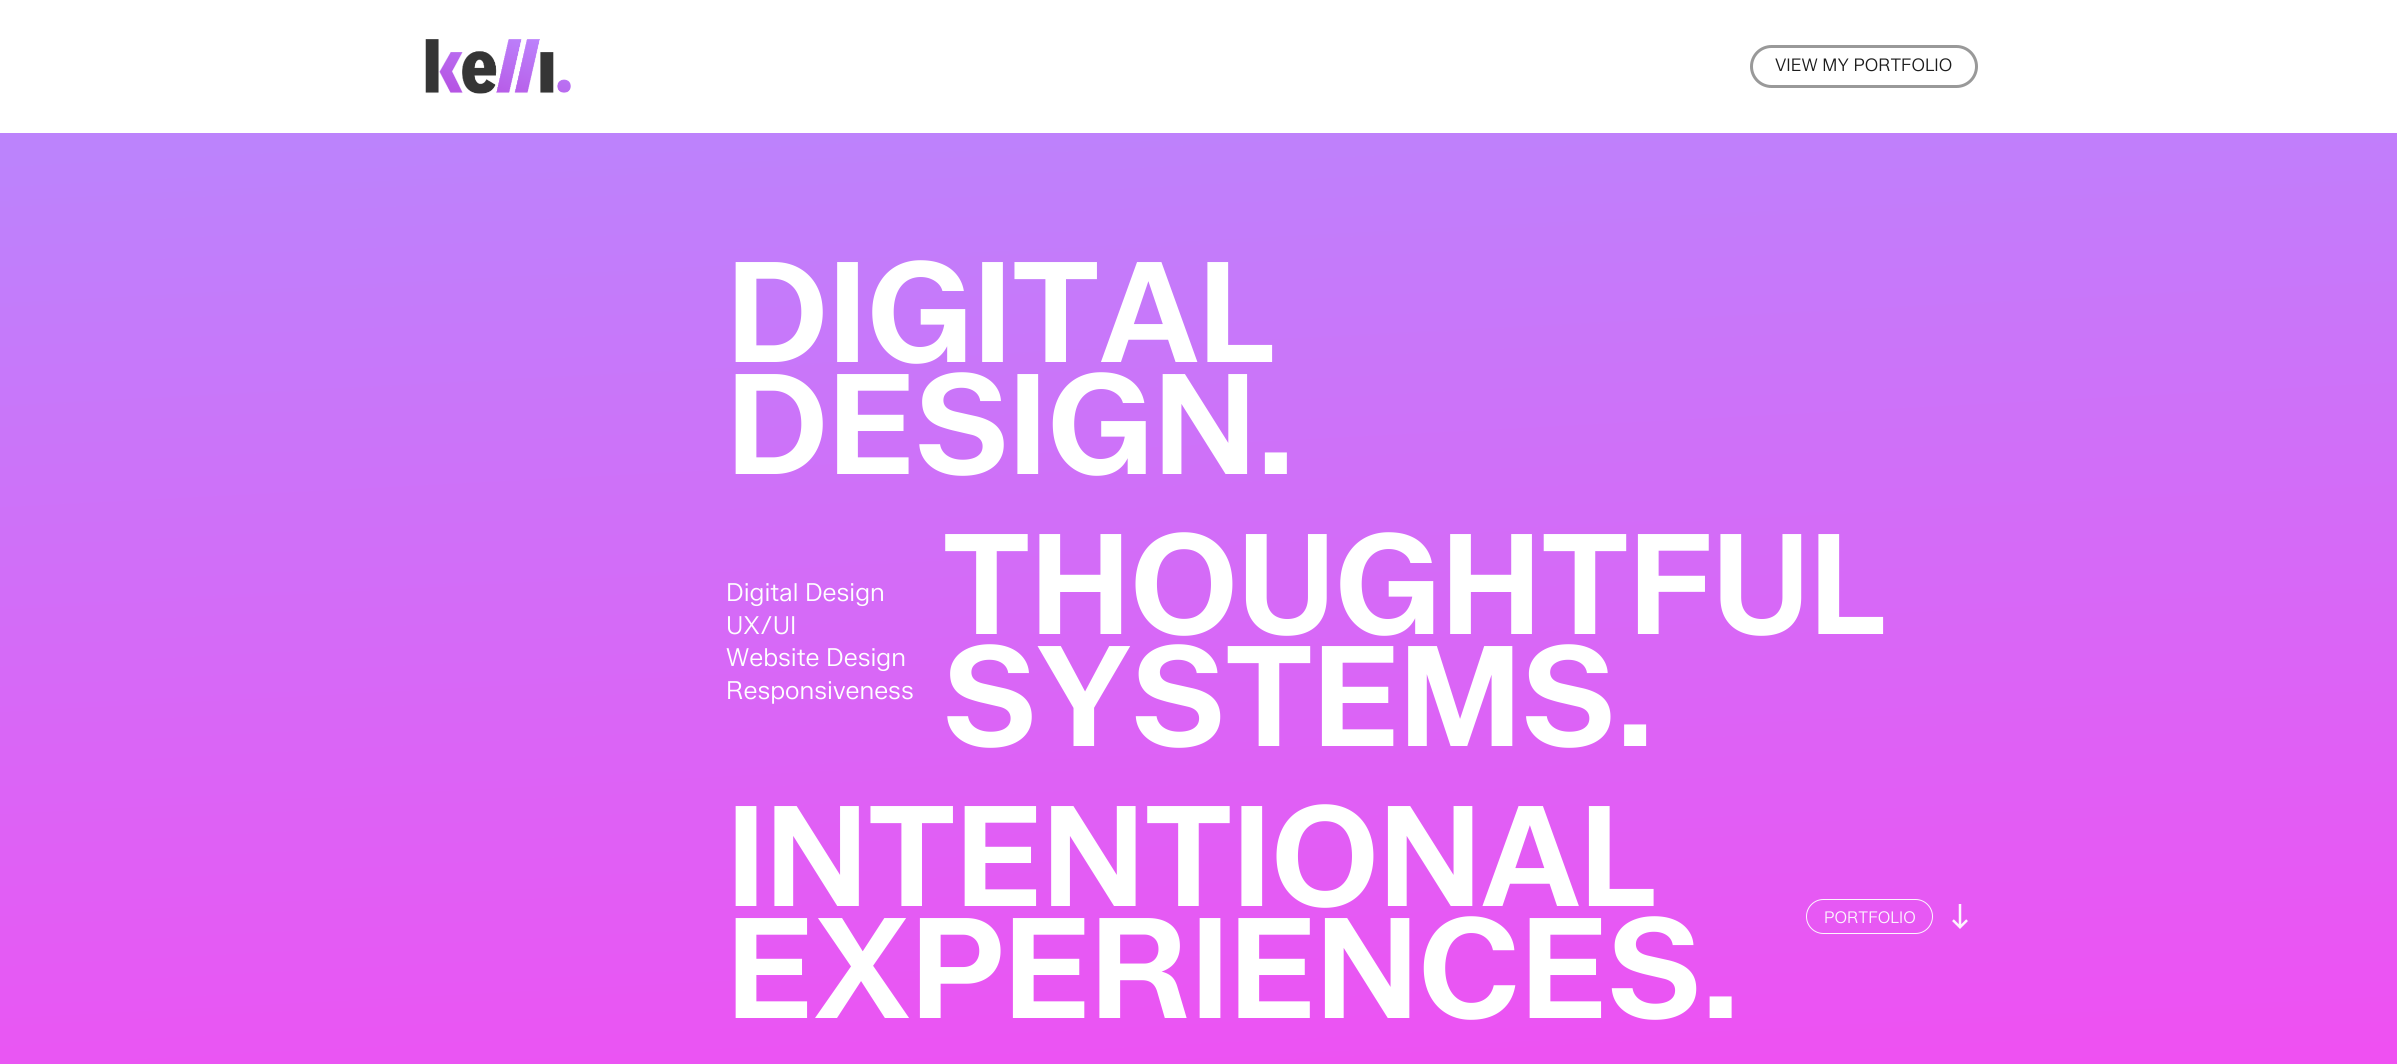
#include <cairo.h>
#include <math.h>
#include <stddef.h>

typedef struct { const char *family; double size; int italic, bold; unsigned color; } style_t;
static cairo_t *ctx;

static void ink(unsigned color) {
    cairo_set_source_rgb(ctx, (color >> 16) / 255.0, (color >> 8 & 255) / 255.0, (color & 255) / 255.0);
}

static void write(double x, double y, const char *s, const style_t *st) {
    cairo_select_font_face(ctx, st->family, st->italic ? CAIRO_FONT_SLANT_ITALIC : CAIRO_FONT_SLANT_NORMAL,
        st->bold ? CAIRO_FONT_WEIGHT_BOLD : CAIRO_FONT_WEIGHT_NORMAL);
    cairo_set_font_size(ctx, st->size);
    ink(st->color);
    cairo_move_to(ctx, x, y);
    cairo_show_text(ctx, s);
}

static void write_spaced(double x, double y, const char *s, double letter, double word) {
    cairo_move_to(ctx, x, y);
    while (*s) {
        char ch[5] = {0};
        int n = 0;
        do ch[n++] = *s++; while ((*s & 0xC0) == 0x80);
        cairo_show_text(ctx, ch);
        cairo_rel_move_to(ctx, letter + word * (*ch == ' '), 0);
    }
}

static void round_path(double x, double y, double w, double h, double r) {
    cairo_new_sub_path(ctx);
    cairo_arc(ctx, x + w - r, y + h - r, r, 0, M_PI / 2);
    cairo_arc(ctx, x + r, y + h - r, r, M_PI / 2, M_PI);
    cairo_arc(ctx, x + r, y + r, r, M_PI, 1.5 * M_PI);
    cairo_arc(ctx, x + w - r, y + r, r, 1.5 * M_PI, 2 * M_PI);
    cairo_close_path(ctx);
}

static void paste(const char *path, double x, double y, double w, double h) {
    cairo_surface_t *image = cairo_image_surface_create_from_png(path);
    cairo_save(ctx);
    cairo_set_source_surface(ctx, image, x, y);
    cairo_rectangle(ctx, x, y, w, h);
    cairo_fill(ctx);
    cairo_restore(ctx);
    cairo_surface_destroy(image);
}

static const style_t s1 = {"Zalando Sans Light", 17.5, 0, 0, 0x1c1c1c};
static const style_t s2 = {"Zalando Sans Light", 25, 0, 0, 0xffffff};
static const style_t s3 = {"Zalando Sans Light", 16.25, 0, 0, 0xfdf4fe};

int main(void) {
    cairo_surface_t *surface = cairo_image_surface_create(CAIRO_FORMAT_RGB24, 2397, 1064);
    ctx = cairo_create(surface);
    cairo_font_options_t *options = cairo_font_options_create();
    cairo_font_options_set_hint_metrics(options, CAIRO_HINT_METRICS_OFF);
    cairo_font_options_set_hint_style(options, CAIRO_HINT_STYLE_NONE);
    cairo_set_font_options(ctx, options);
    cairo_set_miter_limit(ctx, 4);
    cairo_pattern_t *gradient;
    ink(0xffffff);
    cairo_paint(ctx);
    paste("pic1.png", 425, 39, 146, 55);
    round_path(1751.5, 46.5, 225, 40, 20);
    ink(0x999999);
    cairo_set_line_width(ctx, 3);
    cairo_stroke(ctx);
    write(1775, 71, "VIEW MY PORTFOLIO", &s1);
    gradient = cairo_pattern_create_linear(1169, 71, 1231, 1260);
    cairo_pattern_add_color_stop_rgba(gradient, 0.02, 0.737, 0.514, 0.988, 1);
    cairo_pattern_add_color_stop_rgba(gradient, 0.96, 0.957, 0.294, 0.945, 1);
    cairo_set_source(ctx, gradient);
    cairo_pattern_destroy(gradient);
    cairo_rectangle(ctx, 0, 133, 2397, 931);
    cairo_fill(ctx);
    cairo_select_font_face(ctx, "Zalando Sans SemiBold", CAIRO_FONT_SLANT_NORMAL, CAIRO_FONT_WEIGHT_NORMAL);
    cairo_set_font_size(ctx, 140);
    ink(0xffffff);
    write_spaced(726, 362, "DIGITAL", -1.25, 0);
    write_spaced(726, 474, "DESIGN.", -1.25, 0);
    write(726, 601, "Digital Design", &s2);
    write(726, 634, "UX/UI", &s2);
    write(726, 666, "Website Design", &s2);
    write(726, 699, "Responsiveness", &s2);
    cairo_select_font_face(ctx, "Zalando Sans SemiBold", CAIRO_FONT_SLANT_NORMAL, CAIRO_FONT_WEIGHT_NORMAL);
    cairo_set_font_size(ctx, 140);
    write_spaced(942, 634, "THOUGHTFUL", -1.25, 0);
    write_spaced(942, 746, "SYSTEMS.", -1.25, 0);
    write_spaced(726, 906, "INTENTIONAL", -1.25, 0);
    write_spaced(726, 1018, "EXPERIENCES.", -1.25, 0);
    round_path(1806.5, 899.5, 126, 34, 17);
    ink(0xfdf4fe);
    cairo_set_line_width(ctx, 1);
    cairo_stroke(ctx);
    write(1824, 923, "PORTFOLIO", &s3);
    paste("pic2.png", 1952, 904, 16, 25);
    cairo_surface_write_to_png(surface, "screenshot.png");
    cairo_font_options_destroy(options);
    cairo_destroy(ctx);
    cairo_surface_destroy(surface);
    return 0;
}
